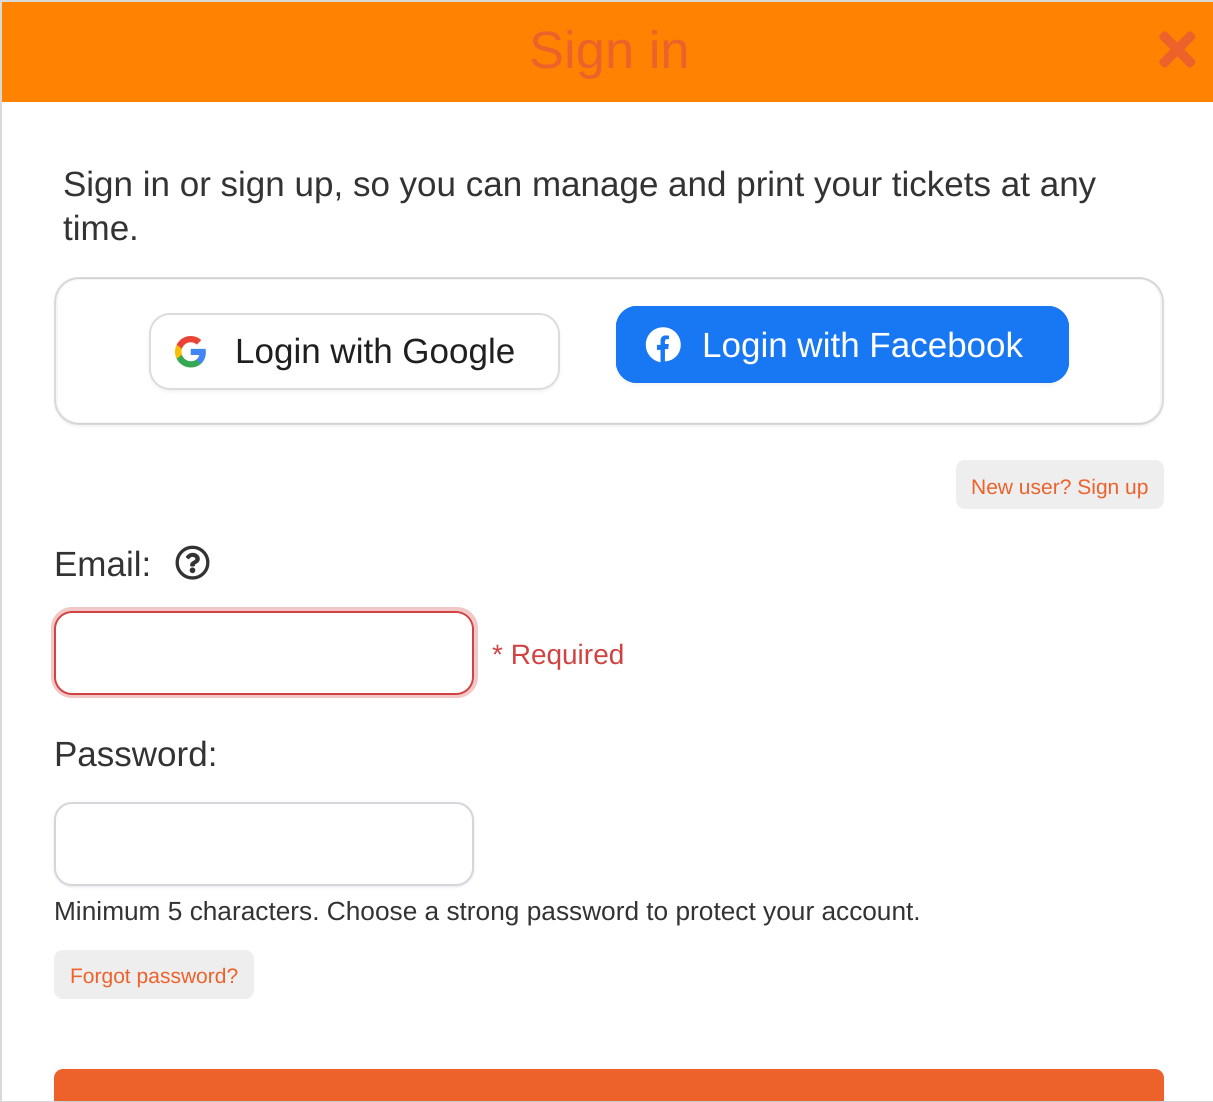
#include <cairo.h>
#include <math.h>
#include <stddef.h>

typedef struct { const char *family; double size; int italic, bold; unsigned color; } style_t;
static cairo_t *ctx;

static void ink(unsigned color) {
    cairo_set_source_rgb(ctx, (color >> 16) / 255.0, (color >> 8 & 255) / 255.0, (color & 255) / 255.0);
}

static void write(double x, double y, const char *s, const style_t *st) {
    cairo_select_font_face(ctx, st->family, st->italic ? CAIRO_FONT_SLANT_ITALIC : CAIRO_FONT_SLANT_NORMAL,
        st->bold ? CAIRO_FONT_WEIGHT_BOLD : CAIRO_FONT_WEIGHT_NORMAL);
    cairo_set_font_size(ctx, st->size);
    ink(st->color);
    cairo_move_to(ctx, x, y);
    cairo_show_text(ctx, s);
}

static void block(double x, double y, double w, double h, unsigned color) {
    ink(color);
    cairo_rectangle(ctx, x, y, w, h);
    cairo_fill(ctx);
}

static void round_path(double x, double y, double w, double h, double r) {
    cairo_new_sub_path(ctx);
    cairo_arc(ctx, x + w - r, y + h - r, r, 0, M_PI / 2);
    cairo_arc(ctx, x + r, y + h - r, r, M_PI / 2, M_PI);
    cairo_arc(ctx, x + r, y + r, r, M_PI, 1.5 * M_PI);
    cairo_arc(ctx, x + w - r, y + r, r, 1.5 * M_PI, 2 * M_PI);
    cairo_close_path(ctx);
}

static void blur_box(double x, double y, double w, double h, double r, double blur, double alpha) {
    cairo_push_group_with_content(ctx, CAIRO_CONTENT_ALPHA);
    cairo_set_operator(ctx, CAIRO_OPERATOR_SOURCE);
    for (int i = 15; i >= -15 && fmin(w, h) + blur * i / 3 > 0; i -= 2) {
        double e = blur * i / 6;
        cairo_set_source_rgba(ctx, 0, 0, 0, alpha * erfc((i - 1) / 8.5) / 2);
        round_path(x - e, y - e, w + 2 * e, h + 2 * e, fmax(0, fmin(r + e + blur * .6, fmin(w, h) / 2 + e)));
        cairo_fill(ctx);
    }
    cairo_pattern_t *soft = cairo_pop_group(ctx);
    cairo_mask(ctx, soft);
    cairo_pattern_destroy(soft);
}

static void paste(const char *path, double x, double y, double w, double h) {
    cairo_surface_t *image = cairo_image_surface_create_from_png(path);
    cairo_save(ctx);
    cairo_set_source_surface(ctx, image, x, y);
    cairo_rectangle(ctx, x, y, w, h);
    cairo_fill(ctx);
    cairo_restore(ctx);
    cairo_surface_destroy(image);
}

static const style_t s1 = {"Liberation Sans", 52.5, 0, 0, 0xed612b};
static const style_t s2 = {"Liberation Sans", 35, 0, 0, 0x333333};
static const style_t s3 = {"Liberation Sans", 35, 0, 0, 0x1f1f1f};
static const style_t s4 = {"Liberation Sans", 35, 0, 0, 0xffffff};
static const style_t s5 = {"Liberation Sans", 21, 0, 0, 0xed612b};
static const style_t s6 = {"Liberation Sans", 28, 0, 0, 0xd14343};
static const style_t s7 = {"Liberation Sans", 26.25, 0, 0, 0x333333};

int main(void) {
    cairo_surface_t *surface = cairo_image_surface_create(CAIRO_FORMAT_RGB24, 1213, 1102);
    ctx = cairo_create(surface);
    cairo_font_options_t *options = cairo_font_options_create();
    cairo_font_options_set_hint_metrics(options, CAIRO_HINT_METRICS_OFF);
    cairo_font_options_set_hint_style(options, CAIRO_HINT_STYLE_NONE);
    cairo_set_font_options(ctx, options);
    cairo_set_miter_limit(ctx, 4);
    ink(0xffffff);
    cairo_paint(ctx);
    cairo_rectangle(ctx, 1, 1, 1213, 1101);
    ink(0xd9d9d9);
    cairo_stroke(ctx);
    block(2, 2, 1211, 100, 0xff8200);
    write(529, 68, "Sign in", &s1);
    paste("pic1.png", 1159, 31, 37, 37);
    write(63, 196, "Sign in or sign up, so you can manage and print your tickets at any", &s2);
    write(63, 240, "time.", &s2);
    cairo_save(ctx);
    cairo_set_fill_rule(ctx, CAIRO_FILL_RULE_EVEN_ODD);
    cairo_new_path(ctx);
    cairo_move_to(ctx, 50, 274);
    cairo_line_to(ctx, 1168, 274);
    cairo_line_to(ctx, 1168, 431);
    cairo_line_to(ctx, 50, 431);
    cairo_close_path(ctx);
    cairo_move_to(ctx, 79, 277);
    cairo_line_to(ctx, 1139, 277);
    cairo_curve_to(ctx, 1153, 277, 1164, 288, 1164, 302);
    cairo_line_to(ctx, 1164, 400);
    cairo_curve_to(ctx, 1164, 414, 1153, 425, 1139, 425);
    cairo_line_to(ctx, 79, 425);
    cairo_curve_to(ctx, 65, 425, 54, 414, 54, 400);
    cairo_line_to(ctx, 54, 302);
    cairo_curve_to(ctx, 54, 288, 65, 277, 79, 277);
    cairo_close_path(ctx);
    cairo_clip(ctx);
    ink(0x000000);
    blur_box(54, 278, 1110, 149, 25, 1, 0.05);
    cairo_restore(ctx);
    round_path(57, 279, 1104, 144, 22);
    ink(0xf5f5f5);
    cairo_stroke(ctx);
    round_path(55, 278, 1108, 146, 24);
    cairo_set_source_rgba(ctx, 0.2, 0.2, 0.2, 0.18);
    cairo_stroke(ctx);
    ink(0x000000);
    blur_box(149, 315, 411, 77, 21, 2, 0.06);
    ink(0xffffff);
    round_path(149, 313, 411, 77, 21);
    cairo_fill(ctx);
    paste("pic2.png", 175, 336, 31, 32);
    round_path(150, 314, 409, 75, 20);
    ink(0xdadce0);
    cairo_stroke(ctx);
    write(235, 363, "Login with Google", &s3);
    ink(0x000000);
    blur_box(616, 308, 453, 77, 21, 2, 0.06);
    ink(0x1877f2);
    round_path(616, 306, 453, 77, 21);
    cairo_fill(ctx);
    paste("pic3.png", 645, 327, 36, 36);
    round_path(617, 307, 451, 75, 20);
    cairo_stroke(ctx);
    write(702, 357, "Login with Facebook", &s4);
    ink(0xeeeeee);
    round_path(956, 460, 208, 49, 9);
    cairo_fill(ctx);
    write(971, 494, "New user? Sign up", &s5);
    write(54, 576, "Email:", &s2);
    paste("pic4.png", 175, 545, 35, 35);
    round_path(53, 609, 423, 87, 19);
    ink(0xf1c7c7);
    cairo_set_line_width(ctx, 4);
    cairo_stroke(ctx);
    ink(0xffffff);
    round_path(55, 612, 418, 82, 17);
    cairo_fill_preserve(ctx);
    ink(0xd14343);
    cairo_set_line_width(ctx, 2);
    cairo_stroke(ctx);
    write(492, 664, "* Required", &s6);
    write(54, 766, "Password:", &s2);
    ink(0x000000);
    blur_box(54, 803, 420, 84, 18, 1, 0.04);
    blur_box(54, 803, 420, 84, 18, 2, 0.06);
    ink(0xffffff);
    round_path(55, 803, 418, 82, 17);
    cairo_fill_preserve(ctx);
    ink(0xd3d6da);
    cairo_stroke(ctx);
    write(54, 920, "Minimum 5 characters. Choose a strong password to protect your account.", &s7);
    ink(0xeeeeee);
    round_path(54, 950, 200, 49, 9);
    cairo_fill(ctx);
    write(70, 983, "Forgot password?", &s5);
    ink(0x000000);
    blur_box(54, 1071, 1110, 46, 9, 2, 0.06);
    ink(0xed612b);
    cairo_new_path(ctx);
    cairo_move_to(ctx, 63, 1069);
    cairo_line_to(ctx, 1155, 1069);
    cairo_curve_to(ctx, 1160, 1069, 1164, 1073, 1164, 1078);
    cairo_line_to(ctx, 1164, 1101);
    cairo_line_to(ctx, 54, 1101);
    cairo_line_to(ctx, 54, 1078);
    cairo_curve_to(ctx, 54, 1073, 58, 1069, 63, 1069);
    cairo_close_path(ctx);
    cairo_fill(ctx);
    cairo_surface_write_to_png(surface, "screenshot.png");
    cairo_font_options_destroy(options);
    cairo_destroy(ctx);
    cairo_surface_destroy(surface);
    return 0;
}
